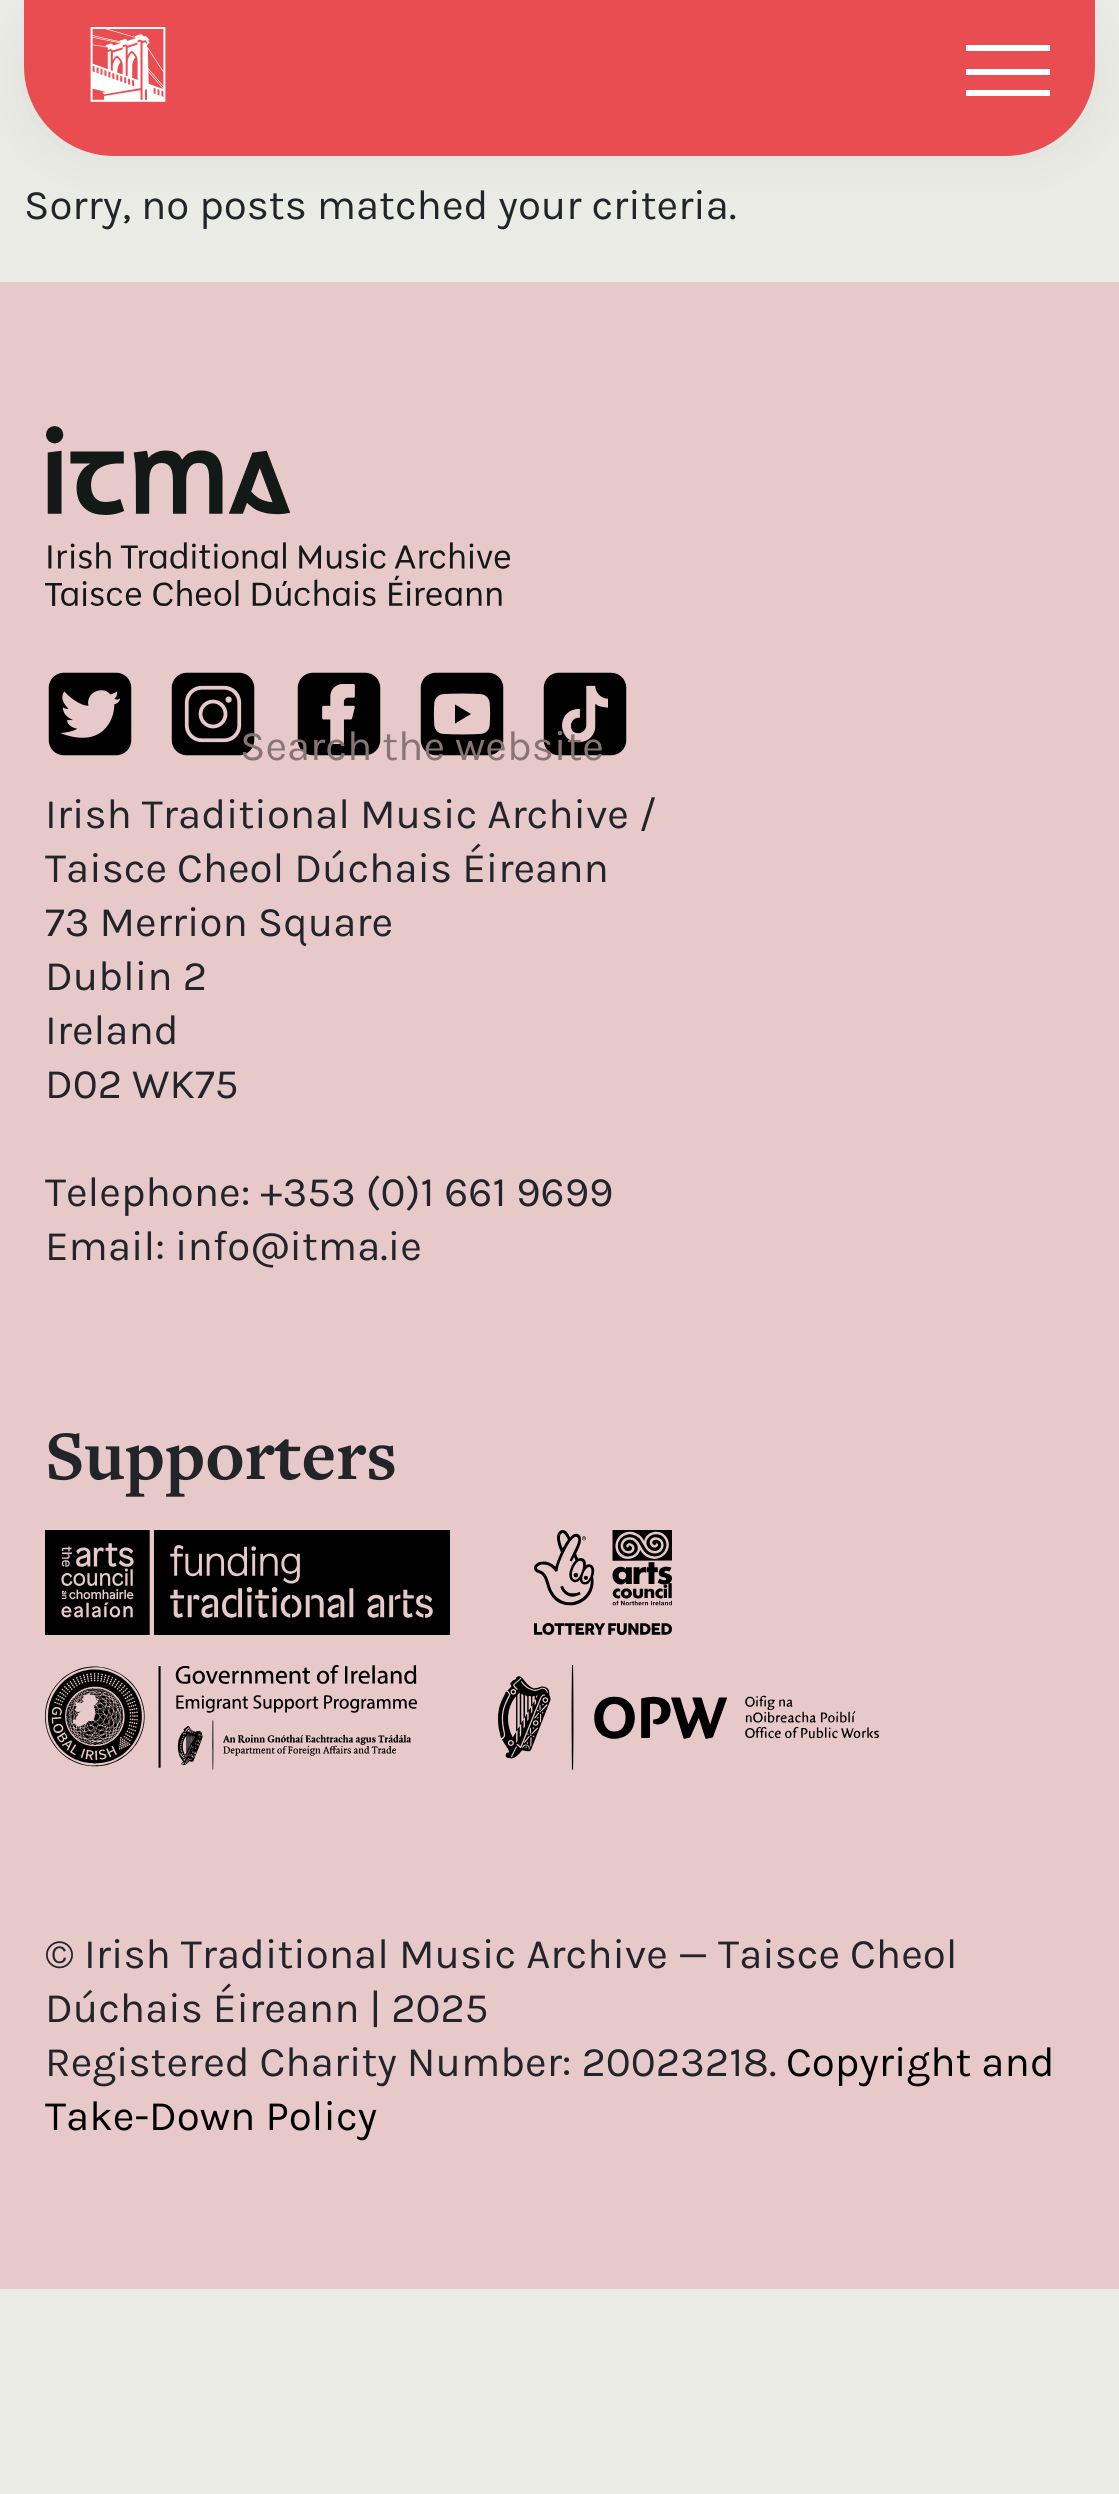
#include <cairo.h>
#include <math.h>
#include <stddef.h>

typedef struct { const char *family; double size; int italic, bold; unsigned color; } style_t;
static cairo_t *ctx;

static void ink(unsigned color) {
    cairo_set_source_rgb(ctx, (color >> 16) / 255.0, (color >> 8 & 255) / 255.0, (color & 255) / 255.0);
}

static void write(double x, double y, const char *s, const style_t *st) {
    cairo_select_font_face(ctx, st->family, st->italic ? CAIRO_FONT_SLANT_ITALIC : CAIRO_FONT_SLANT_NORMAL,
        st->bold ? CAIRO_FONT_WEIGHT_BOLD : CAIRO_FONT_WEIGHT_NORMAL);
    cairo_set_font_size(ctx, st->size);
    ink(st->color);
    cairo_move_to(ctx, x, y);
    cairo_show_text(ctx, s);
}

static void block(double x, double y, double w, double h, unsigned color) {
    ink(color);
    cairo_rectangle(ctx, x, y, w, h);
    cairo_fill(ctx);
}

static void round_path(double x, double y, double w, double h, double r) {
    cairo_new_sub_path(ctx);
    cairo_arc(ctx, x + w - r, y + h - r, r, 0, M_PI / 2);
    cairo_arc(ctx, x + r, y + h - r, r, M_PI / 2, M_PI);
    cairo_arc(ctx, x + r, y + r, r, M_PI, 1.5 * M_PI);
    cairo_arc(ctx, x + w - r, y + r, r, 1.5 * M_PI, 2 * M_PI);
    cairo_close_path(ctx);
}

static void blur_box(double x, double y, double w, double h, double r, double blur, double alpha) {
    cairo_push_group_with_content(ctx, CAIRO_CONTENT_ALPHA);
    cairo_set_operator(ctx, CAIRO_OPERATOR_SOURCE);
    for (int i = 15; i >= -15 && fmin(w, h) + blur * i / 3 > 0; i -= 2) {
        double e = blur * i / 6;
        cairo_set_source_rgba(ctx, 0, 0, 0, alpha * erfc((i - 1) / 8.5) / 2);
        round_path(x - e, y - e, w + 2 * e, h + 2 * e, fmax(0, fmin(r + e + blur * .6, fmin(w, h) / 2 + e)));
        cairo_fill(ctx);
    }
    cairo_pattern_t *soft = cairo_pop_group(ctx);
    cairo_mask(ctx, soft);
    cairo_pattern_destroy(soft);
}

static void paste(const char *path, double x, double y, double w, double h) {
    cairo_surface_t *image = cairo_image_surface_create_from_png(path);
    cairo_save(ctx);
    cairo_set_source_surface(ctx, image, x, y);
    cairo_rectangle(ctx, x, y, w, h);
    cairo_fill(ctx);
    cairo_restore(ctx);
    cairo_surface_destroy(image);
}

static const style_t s1 = {"Karla", 42, 0, 0, 0x212529};
static const style_t s2 = {"Karla", 42, 0, 0, 0x877575};
static const style_t s3 = {"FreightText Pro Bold", 72, 0, 1, 0x212529};
static const style_t s4 = {"Karla", 42, 0, 0, 0x000000};

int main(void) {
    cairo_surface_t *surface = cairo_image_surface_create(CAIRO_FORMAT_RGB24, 1119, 2494);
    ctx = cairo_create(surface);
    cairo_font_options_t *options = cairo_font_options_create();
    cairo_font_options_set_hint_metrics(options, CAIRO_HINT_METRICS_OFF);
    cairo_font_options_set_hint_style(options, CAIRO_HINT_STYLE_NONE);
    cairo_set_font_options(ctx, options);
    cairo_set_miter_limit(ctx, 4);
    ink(0xebebe5);
    cairo_paint(ctx);
    ink(0x000000);
    blur_box(24, 0, 1071, 156, 90, 24, 0.05);
    ink(0xe94d51);
    cairo_new_path(ctx);
    cairo_move_to(ctx, 24, 0);
    cairo_line_to(ctx, 1095, 0);
    cairo_line_to(ctx, 1095, 66);
    cairo_curve_to(ctx, 1095, 115.5, 1054.5, 156, 1005, 156);
    cairo_line_to(ctx, 114, 156);
    cairo_curve_to(ctx, 64.5, 156, 24, 115.5, 24, 66);
    cairo_close_path(ctx);
    cairo_fill(ctx);
    paste("pic1.png", 90, 27, 76, 75);
    block(966, 45, 84, 6, 0xffffff);
    block(966, 69, 84, 6, 0xffffff);
    block(966, 90, 84, 6, 0xffffff);
    write(24, 219, "Sorry, no posts matched your criteria.", &s1);
    block(0, 282, 1119, 2007, 0xe8c9ca);
    paste("pic4.png", 171, 672, 84, 84);
    paste("pic5.png", 297, 672, 84, 84);
    paste("pic6.png", 420, 672, 84, 84);
    paste("pic7.png", 543, 672, 84, 84);
    write(240, 760, "Search the website", &s2);
    paste("pic2.png", 45, 426, 465, 180);
    paste("pic3.png", 48, 672, 84, 84);
    write(45, 828, "Irish Traditional Music Archive /", &s1);
    write(45, 882, "Taisce Cheol Dúchais Éireann", &s1);
    write(45, 936, "73 Merrion Square", &s1);
    write(45, 990, "Dublin 2", &s1);
    write(45, 1044, "Ireland", &s1);
    write(45, 1098, "D02 WK75", &s1);
    write(45, 1206, "Telephone: +353 (0)1 661 9699", &s1);
    write(45, 1260, "Email: info@itma.ie", &s1);
    write(45, 1479, "Supporters", &s3);
    paste("pic8.png", 45, 1530, 405, 105);
    paste("pic9.png", 534, 1530, 138, 105);
    paste("pic10.png", 45, 1665, 372, 105);
    paste("pic11.png", 498, 1665, 381, 105);
    write(45, 1968, "© Irish Traditional Music Archive — Taisce Cheol", &s1);
    write(45, 2022, "Dúchais Éireann | 2025", &s1);
    write(45, 2076, "Registered Charity Number: 20023218.", &s1);
    write(786, 2076, "Copyright and", &s4);
    write(45, 2130, "Take-Down Policy", &s4);
    cairo_surface_write_to_png(surface, "screenshot.png");
    cairo_font_options_destroy(options);
    cairo_destroy(ctx);
    cairo_surface_destroy(surface);
    return 0;
}
